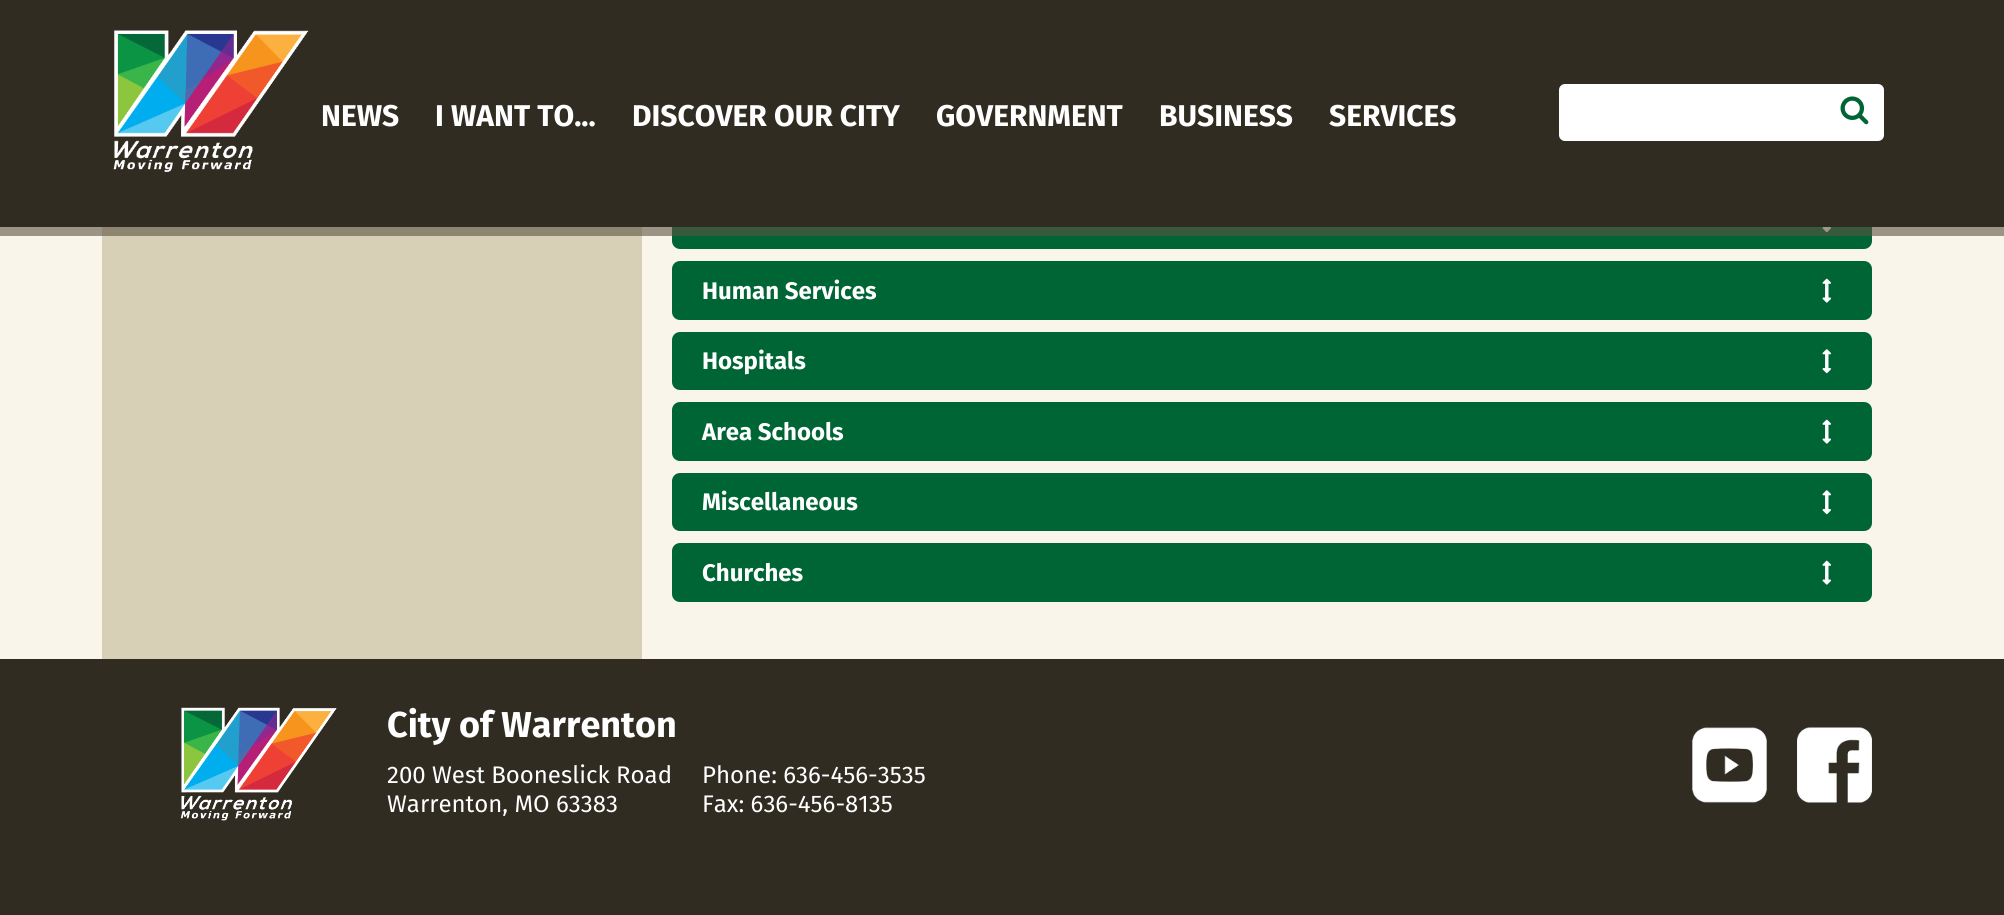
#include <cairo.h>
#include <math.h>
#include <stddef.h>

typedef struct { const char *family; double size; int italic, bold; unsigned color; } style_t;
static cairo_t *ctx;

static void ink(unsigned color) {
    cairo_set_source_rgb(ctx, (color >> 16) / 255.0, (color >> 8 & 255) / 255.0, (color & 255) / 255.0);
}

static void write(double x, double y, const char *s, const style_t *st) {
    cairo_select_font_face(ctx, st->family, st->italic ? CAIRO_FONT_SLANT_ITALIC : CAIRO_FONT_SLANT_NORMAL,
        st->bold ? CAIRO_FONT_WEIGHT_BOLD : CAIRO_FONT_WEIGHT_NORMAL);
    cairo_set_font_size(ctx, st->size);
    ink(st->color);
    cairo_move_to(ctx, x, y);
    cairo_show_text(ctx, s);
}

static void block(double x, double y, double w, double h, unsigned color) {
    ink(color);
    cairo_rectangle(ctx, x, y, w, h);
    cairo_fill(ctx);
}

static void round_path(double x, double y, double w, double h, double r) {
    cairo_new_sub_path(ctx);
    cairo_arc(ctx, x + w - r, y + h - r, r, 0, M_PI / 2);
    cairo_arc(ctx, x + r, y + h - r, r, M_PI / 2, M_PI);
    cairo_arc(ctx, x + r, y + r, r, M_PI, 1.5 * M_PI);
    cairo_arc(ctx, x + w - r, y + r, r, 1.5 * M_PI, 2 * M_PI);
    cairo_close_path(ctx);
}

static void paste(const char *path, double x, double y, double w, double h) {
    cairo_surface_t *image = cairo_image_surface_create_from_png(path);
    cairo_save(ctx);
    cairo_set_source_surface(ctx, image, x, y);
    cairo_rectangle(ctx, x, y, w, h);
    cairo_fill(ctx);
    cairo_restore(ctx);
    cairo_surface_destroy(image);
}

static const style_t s1 = {"Fira Sans", 30, 0, 1, 0xffffff};
static const style_t s2 = {"Fira Sans", 24, 0, 1, 0xffffff};
static const style_t s3 = {"Fira Sans", 36, 0, 1, 0xffffff};
static const style_t s4 = {"Fira Sans", 24, 0, 0, 0xffffff};

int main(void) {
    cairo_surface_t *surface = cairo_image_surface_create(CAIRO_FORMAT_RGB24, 2004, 915);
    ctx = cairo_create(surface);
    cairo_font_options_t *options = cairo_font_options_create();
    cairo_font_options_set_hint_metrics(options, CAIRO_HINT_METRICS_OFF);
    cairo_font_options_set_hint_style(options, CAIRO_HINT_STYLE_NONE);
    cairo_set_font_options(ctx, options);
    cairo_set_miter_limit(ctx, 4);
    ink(0xf9f5eb);
    cairo_paint(ctx);
    ink(0x006535);
    round_path(672, 191, 1200, 58, 8);
    cairo_fill(ctx);
    block(0, 0, 2004, 227, 0x302c22);
    paste("pic1.png", 113, 30, 196, 142);
    write(321, 126, "NEWS", &s1);
    write(435, 126, "I WANT TO...", &s1);
    write(632, 126, "DISCOVER OUR CITY", &s1);
    write(936, 126, "GOVERNMENT", &s1);
    write(1159, 126, "BUSINESS", &s1);
    write(1329, 126, "SERVICES", &s1);
    round_path(1559, 84, 325, 57, 6);
    cairo_fill(ctx);
    paste("pic2.png", 1840, 96, 29, 29);
    block(102, 227, 540, 432, 0xd7cfb6);
    paste("pic3.png", 1822, 227, 9, 6);
    cairo_set_source_rgba(ctx, 0.361, 0.329, 0.255, 0.6);
    cairo_rectangle(ctx, 0, 227, 2004, 9);
    cairo_fill(ctx);
    ink(0x006535);
    round_path(672, 261, 1200, 59, 8);
    cairo_fill(ctx);
    write(702, 299, "Human Services", &s2);
    paste("pic4.png", 1822, 278, 9, 25);
    ink(0x006535);
    round_path(672, 332, 1200, 58, 8);
    cairo_fill(ctx);
    write(702, 369, "Hospitals", &s2);
    paste("pic5.png", 1822, 349, 9, 25);
    ink(0x006535);
    round_path(672, 402, 1200, 59, 8);
    cairo_fill(ctx);
    write(702, 440, "Area Schools", &s2);
    paste("pic4.png", 1822, 419, 9, 25);
    ink(0x006535);
    round_path(672, 473, 1200, 58, 8);
    cairo_fill(ctx);
    write(702, 510, "Miscellaneous", &s2);
    paste("pic5.png", 1822, 490, 9, 25);
    ink(0x006535);
    round_path(672, 543, 1200, 59, 8);
    cairo_fill(ctx);
    write(702, 581, "Churches", &s2);
    paste("pic4.png", 1822, 560, 9, 25);
    block(0, 659, 2004, 256, 0x302c22);
    paste("pic6.png", 180, 707, 157, 114);
    write(387, 737, "City of Warrenton", &s3);
    write(387, 783, "200 West Booneslick Road", &s4);
    write(387, 812, "Warrenton, MO 63383", &s4);
    write(702, 783, "Phone: 636-456-3535", &s4);
    write(702, 812, "Fax: 636-456-8135", &s4);
    paste("pic7.png", 1692, 727, 75, 76);
    paste("pic8.png", 1797, 727, 75, 76);
    cairo_surface_write_to_png(surface, "screenshot.png");
    cairo_font_options_destroy(options);
    cairo_destroy(ctx);
    cairo_surface_destroy(surface);
    return 0;
}
